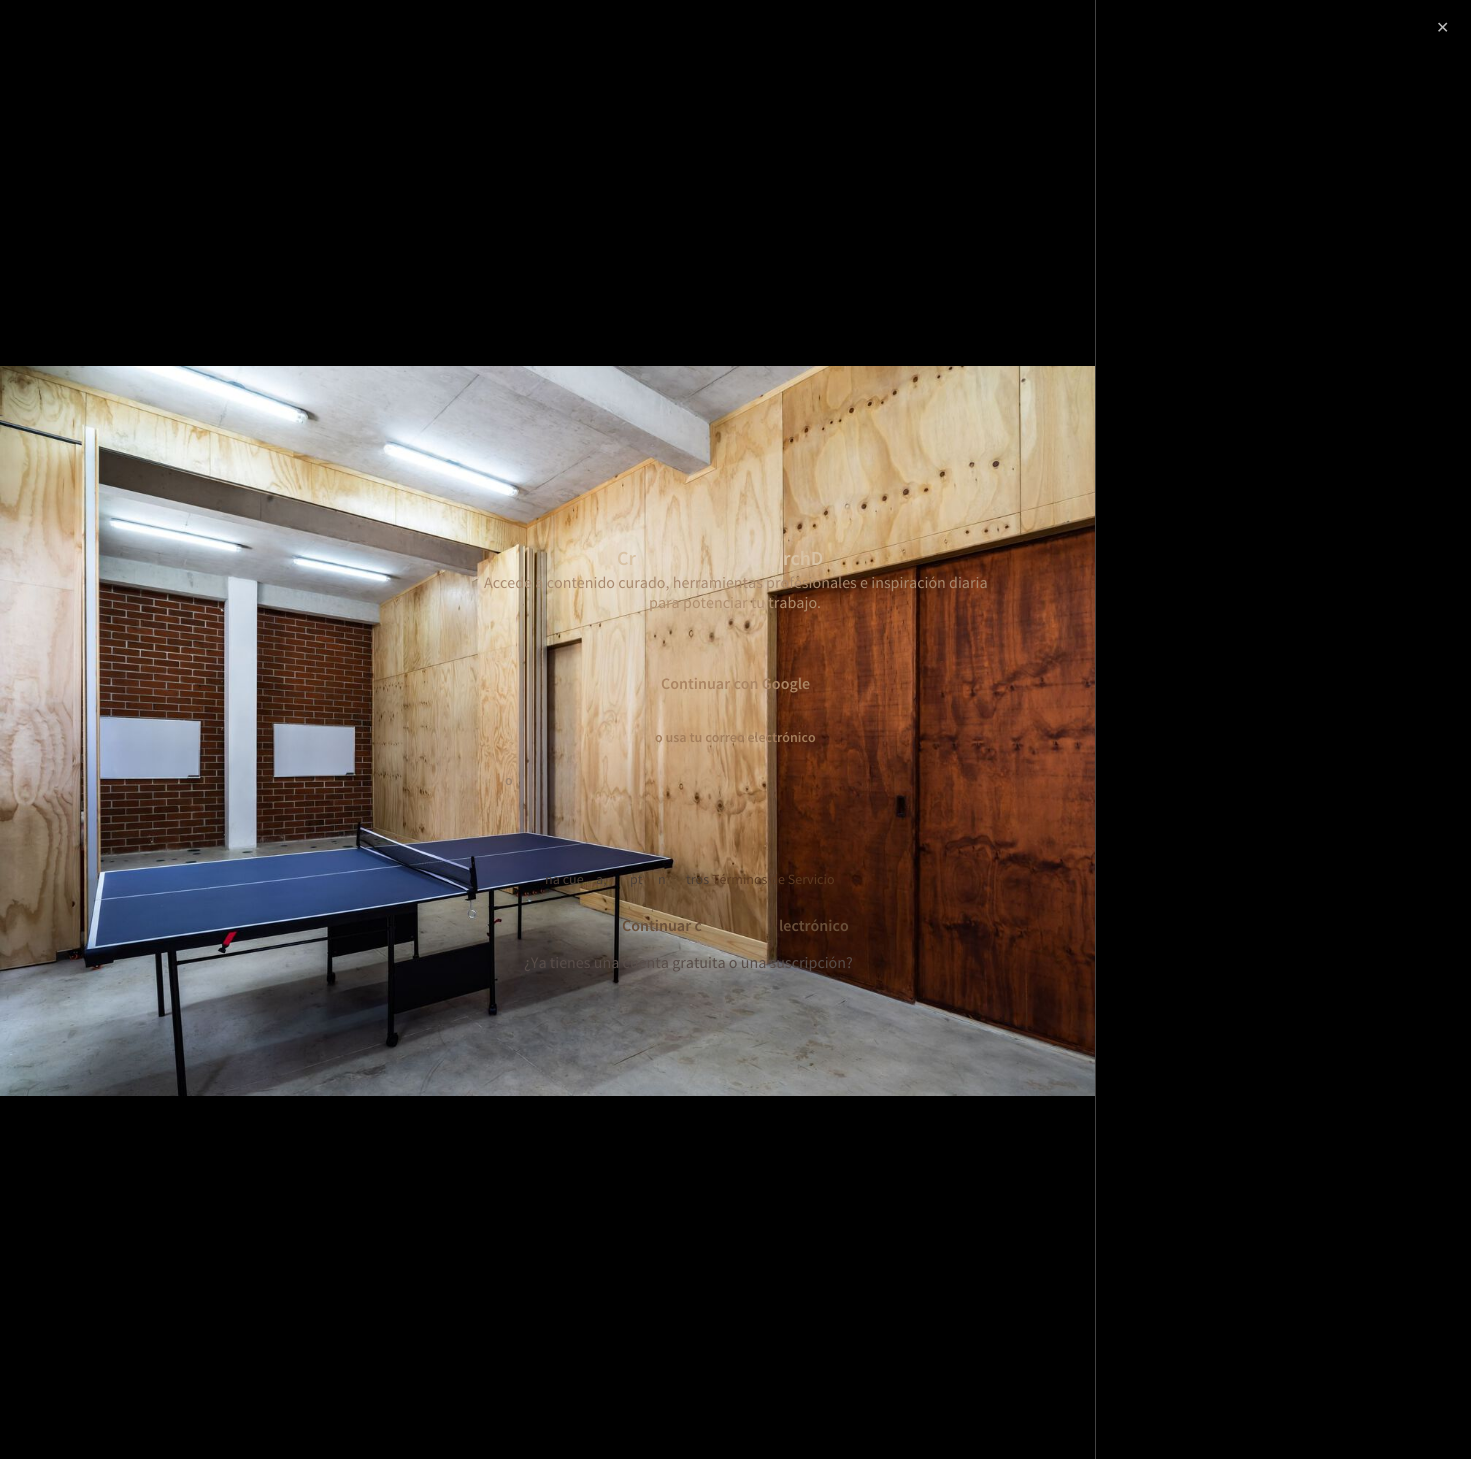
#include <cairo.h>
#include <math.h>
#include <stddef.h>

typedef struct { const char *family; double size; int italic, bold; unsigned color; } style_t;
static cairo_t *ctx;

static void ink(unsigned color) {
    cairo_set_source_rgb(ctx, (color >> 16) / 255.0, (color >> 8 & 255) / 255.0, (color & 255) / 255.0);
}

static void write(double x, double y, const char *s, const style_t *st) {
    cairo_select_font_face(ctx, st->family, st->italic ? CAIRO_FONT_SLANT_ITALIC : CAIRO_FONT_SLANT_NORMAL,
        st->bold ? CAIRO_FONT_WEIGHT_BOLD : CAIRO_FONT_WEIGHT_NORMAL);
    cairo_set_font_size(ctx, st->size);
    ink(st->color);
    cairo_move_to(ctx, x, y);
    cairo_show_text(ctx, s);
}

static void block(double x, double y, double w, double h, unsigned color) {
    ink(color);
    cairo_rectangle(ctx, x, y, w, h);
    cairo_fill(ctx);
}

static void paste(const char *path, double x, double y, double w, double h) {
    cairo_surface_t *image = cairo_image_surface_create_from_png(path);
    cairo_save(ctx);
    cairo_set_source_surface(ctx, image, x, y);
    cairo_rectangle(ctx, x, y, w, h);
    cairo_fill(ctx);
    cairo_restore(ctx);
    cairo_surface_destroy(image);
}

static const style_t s1 = {"DejaVu Sans", 16, 0, 0, 0xbbbbbb};
static const style_t s2 = {"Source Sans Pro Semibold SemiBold", 20, 0, 0, 0xd8c2a4};
static const style_t s3 = {"Source Sans Pro", 16, 0, 0, 0xa8896e};
static const style_t s4 = {"Source Sans Pro", 16, 0, 0, 0xaf8e6e};
static const style_t s5 = {"Source Sans Pro Semibold SemiBold", 16, 0, 0, 0xab8563};
static const style_t s6 = {"Source Sans Pro Semibold SemiBold", 14, 0, 0, 0xa37d5b};
static const style_t s7 = {"Source Sans Pro Semibold SemiBold", 14, 0, 0, 0x9c836d};
static const style_t s8 = {"Source Sans Pro", 14, 0, 0, 0x4a3d35};
static const style_t s9 = {"Source Sans Pro", 14, 0, 0, 0x5c3a21};
static const style_t s10 = {"Source Sans Pro Semibold SemiBold", 16, 0, 0, 0x694f39};
static const style_t s11 = {"Source Sans Pro", 16, 0, 0, 0x574c48};

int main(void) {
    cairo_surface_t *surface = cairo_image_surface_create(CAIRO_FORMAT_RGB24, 1471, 1459);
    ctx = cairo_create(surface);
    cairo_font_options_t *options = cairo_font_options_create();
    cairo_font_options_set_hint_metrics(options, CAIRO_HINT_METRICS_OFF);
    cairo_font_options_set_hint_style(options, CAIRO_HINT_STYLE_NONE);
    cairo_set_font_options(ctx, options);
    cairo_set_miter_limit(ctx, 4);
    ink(0x000000);
    cairo_paint(ctx);
    block(1095, 0, 1, 1459, 0x444444);
    write(1436, 33, "✕", &s1);
    paste("pic1.png", 0, 366, 1095, 730);
    write(617, 565, "Cr", &s2);
    write(783, 565, "rchD", &s2);
    write(484, 588, "Accede a contenido curado, herramientas profesionales e inspiración diaria", &s3);
    write(649, 608, "para potenciar tu trabajo.", &s4);
    write(661, 689, "Continuar con Google", &s5);
    write(655, 742, "o usa tu correo electrónico", &s6);
    write(505, 785, "o", &s7);
    write(545, 884, "na cue", &s8);
    write(596, 884, "a,", &s8);
    write(630, 884, "pt", &s8);
    write(658, 884, "n", &s8);
    write(686, 884, "tros", &s8);
    write(712, 884, "Términos de Servicio", &s9);
    write(622, 931, "Continuar c", &s10);
    write(779, 931, "lectrónico", &s10);
    write(524, 968, "¿Ya tienes una cuenta gratuita o una suscripción?", &s11);
    cairo_surface_write_to_png(surface, "screenshot.png");
    cairo_font_options_destroy(options);
    cairo_destroy(ctx);
    cairo_surface_destroy(surface);
    return 0;
}
